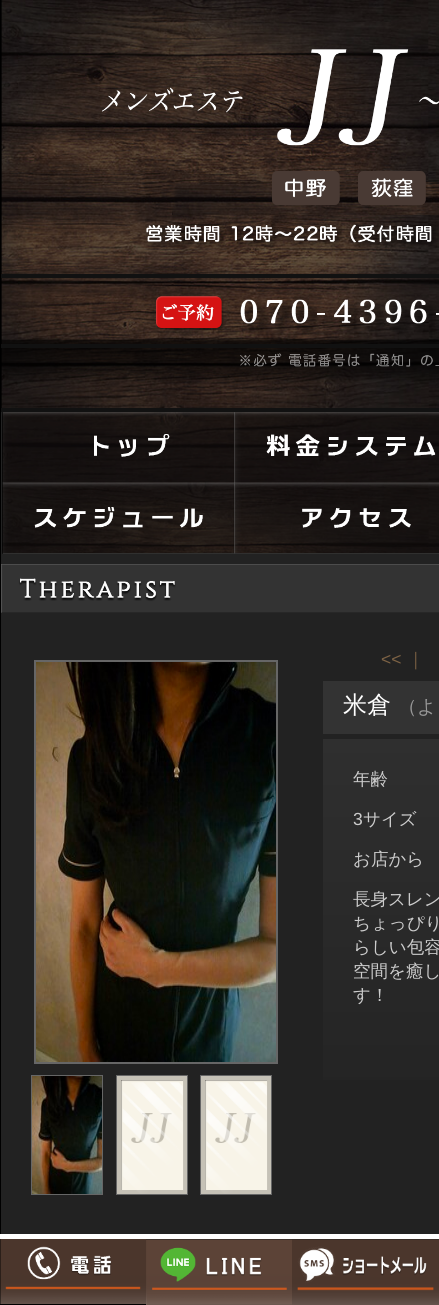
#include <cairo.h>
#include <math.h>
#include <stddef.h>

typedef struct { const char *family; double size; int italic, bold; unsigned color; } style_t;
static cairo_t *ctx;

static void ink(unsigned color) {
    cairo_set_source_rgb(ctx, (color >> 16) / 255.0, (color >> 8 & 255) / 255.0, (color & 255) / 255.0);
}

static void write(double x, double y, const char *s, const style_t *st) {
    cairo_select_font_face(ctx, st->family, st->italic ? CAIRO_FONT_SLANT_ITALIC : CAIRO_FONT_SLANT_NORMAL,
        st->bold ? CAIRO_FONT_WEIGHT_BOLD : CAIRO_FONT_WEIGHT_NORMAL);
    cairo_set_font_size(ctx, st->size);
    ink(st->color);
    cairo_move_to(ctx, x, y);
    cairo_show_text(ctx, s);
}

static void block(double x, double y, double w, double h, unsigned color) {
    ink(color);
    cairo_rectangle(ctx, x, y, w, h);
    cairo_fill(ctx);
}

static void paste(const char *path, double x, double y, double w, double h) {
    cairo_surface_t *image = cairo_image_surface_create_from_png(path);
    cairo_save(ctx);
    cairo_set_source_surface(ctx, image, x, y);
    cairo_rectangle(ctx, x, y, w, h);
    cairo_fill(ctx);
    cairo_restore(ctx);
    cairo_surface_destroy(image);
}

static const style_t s1 = {"Liberation Sans", 17.5, 0, 0, 0x7d6244};
static const style_t s2 = {"WenQuanYi Zen Hei Medium", 17.5, 0, 0, 0x7d6244};
static const style_t s3 = {"WenQuanYi Zen Hei Medium", 24, 0, 0, 0xffffff};
static const style_t s4 = {"WenQuanYi Zen Hei Medium", 19, 0, 0, 0x999999};
static const style_t s5 = {"WenQuanYi Zen Hei Medium", 17.5, 0, 0, 0xcccccc};
static const style_t s6 = {"Liberation Sans", 17.5, 0, 0, 0xcccccc};

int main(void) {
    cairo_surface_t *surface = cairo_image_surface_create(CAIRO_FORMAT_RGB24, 439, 1305);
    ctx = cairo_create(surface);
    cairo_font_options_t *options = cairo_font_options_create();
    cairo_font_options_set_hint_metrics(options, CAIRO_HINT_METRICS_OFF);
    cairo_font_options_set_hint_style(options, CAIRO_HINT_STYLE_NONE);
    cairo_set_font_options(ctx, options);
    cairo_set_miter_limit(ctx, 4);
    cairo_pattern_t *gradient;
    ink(0x222222);
    cairo_paint(ctx);
    block(0, 0, 1, 1234, 0x000000);
    block(1, 274, 438, 138, 0x111111);
    paste("pic1.png", 1, 0, 438, 274);
    paste("pic2.png", 1, 278, 438, 66);
    paste("pic3.png", 1, 348, 438, 60);
    paste("pic4.png", 2, 412, 233, 71);
    paste("pic5.png", 235, 412, 204, 71);
    paste("pic6.png", 2, 483, 233, 71);
    paste("pic7.png", 235, 483, 204, 71);
    paste("pic8.png", 1, 564, 438, 49);
    cairo_rectangle(ctx, 35, 661, 242, 402);
    ink(0x666666);
    cairo_stroke(ctx);
    paste("pic9.png", 36, 662, 240, 400);
    cairo_rectangle(ctx, 31.5, 1075.5, 71, 119);
    cairo_set_line_width(ctx, 1);
    cairo_stroke(ctx);
    cairo_rectangle(ctx, 116.5, 1075.5, 71, 119);
    cairo_stroke(ctx);
    cairo_rectangle(ctx, 200.5, 1075.5, 71, 119);
    cairo_stroke(ctx);
    paste("pic10.png", 32, 1076, 70, 118);
    paste("pic11.png", 117, 1076, 70, 118);
    paste("pic11.png", 201, 1076, 70, 118);
    write(381, 665, "<<", &s1);
    write(407, 665, "｜", &s2);
    block(323, 681, 116, 53, 0x333333);
    write(343, 713, "米倉", &s3);
    write(398, 713, "（よ", &s4);
    gradient = cairo_pattern_create_linear(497, 739, 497, 1161);
    cairo_pattern_add_color_stop_rgba(gradient, 0, 0.184, 0.184, 0.184, 1);
    cairo_pattern_add_color_stop_rgba(gradient, 1, 0.133, 0.133, 0.133, 1);
    cairo_set_source(ctx, gradient);
    cairo_pattern_destroy(gradient);
    cairo_rectangle(ctx, 323, 739, 116, 341);
    cairo_fill(ctx);
    write(353, 785, "年齢", &s5);
    write(353, 825, "3", &s6);
    write(363, 825, "サイズ", &s5);
    write(353, 865, "お店から", &s5);
    write(353, 905, "長身スレン", &s5);
    write(353, 929, "ちょっぴり", &s5);
    write(353, 953, "らしい包容", &s5);
    write(353, 977, "空間を癒し", &s5);
    write(353, 1001, "す！", &s5);
    block(0, 1304, 292, 1, 0x000000);
    block(0, 1234, 439, 5, 0xffffff);
    paste("pic12.png", 0, 1239, 146, 65);
    paste("pic13.png", 146, 1239, 146, 66);
    paste("pic14.png", 292, 1239, 147, 66);
    cairo_surface_write_to_png(surface, "screenshot.png");
    cairo_font_options_destroy(options);
    cairo_destroy(ctx);
    cairo_surface_destroy(surface);
    return 0;
}
